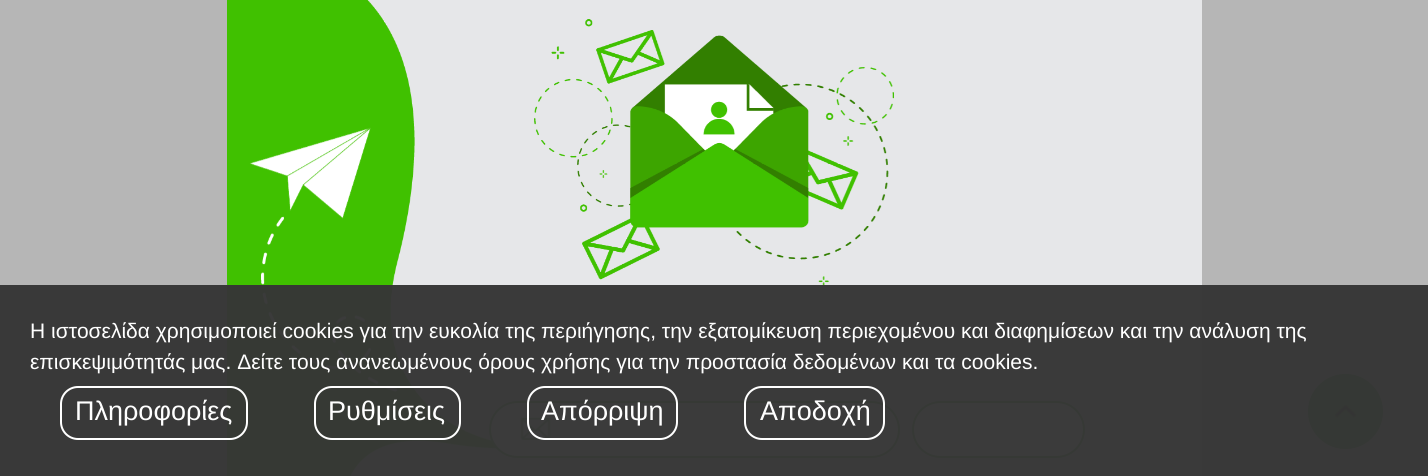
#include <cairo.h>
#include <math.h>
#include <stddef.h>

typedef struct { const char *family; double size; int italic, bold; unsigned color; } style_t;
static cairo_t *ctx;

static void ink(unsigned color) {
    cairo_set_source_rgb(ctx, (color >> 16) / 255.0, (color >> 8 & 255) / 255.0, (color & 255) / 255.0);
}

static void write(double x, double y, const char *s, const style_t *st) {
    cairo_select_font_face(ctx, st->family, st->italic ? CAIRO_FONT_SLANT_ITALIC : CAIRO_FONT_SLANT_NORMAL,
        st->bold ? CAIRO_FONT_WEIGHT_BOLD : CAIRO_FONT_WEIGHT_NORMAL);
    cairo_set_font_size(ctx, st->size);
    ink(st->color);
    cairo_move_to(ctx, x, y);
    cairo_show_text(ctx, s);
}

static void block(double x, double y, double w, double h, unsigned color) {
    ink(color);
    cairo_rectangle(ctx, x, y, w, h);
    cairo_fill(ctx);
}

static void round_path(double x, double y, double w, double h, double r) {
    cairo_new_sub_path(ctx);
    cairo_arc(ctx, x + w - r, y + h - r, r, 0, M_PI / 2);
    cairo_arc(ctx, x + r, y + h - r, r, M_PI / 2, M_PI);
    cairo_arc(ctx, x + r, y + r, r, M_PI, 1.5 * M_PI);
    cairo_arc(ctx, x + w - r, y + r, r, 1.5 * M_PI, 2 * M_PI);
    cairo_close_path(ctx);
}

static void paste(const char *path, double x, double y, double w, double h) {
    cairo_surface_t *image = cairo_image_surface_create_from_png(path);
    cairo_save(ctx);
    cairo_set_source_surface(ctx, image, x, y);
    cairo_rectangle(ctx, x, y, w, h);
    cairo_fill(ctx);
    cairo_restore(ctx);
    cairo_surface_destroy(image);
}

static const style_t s1 = {"Liberation Sans", 21, 0, 0, 0xffffff};
static const style_t s2 = {"Liberation Sans", 27, 0, 0, 0xffffff};

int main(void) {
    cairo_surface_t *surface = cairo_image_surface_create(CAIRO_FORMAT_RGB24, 1428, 476);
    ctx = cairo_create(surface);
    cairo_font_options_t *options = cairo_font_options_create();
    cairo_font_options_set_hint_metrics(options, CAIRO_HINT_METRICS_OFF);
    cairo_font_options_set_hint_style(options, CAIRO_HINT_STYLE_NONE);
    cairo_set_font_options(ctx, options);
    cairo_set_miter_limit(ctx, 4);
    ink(0xb6b6b6);
    cairo_paint(ctx);
    block(349, 0, 853, 476, 0xe6e7e9);
    paste("pic1.png", 227, 0, 270, 476);
    paste("pic2.png", 534, 19, 360, 268);
    ink(0xffffff);
    round_path(490, 402, 409, 55, 27.5);
    cairo_fill_preserve(ctx);
    ink(0x47a534);
    cairo_stroke(ctx);
    paste("pic3.png", 520, 417, 31, 23);
    ink(0xffffff);
    round_path(913, 402, 171, 55, 27.5);
    cairo_fill_preserve(ctx);
    ink(0x47a534);
    cairo_stroke(ctx);
    ink(0x218f14);
    cairo_arc(ctx, 1345.5, 411.5, 37.5, 0, 2 * M_PI);
    cairo_fill(ctx);
    paste("pic4.png", 1334, 404, 23, 14);
    cairo_set_source_rgba(ctx, 0.212, 0.212, 0.212, 0.97);
    cairo_rectangle(ctx, 0, 285, 1428, 191);
    cairo_fill(ctx);
    write(30, 338, "Η ιστοσελίδα χρησιμοποιεί cookies για την ευκολία της περιήγησης, την εξατομίκευση περιεχομένου και διαφημίσεων και την ανάλυση της", &s1);
    write(30, 369, "επισκεψιμότητάς μας. Δείτε τους ανανεωμένους όρους χρήσης για την προστασία δεδομένων και τα cookies.", &s1);
    round_path(61, 387, 186, 52, 17);
    cairo_stroke(ctx);
    write(75, 420, "Πληροφορίες", &s2);
    round_path(315, 387, 145, 52, 17);
    cairo_stroke(ctx);
    write(328, 420, "Ρυθμίσεις", &s2);
    round_path(528, 387, 149, 52, 17);
    cairo_stroke(ctx);
    write(541, 420, "Απόρριψη", &s2);
    round_path(745, 387, 139, 52, 17);
    cairo_stroke(ctx);
    write(760, 420, "Αποδοχή", &s2);
    cairo_surface_write_to_png(surface, "screenshot.png");
    cairo_font_options_destroy(options);
    cairo_destroy(ctx);
    cairo_surface_destroy(surface);
    return 0;
}
